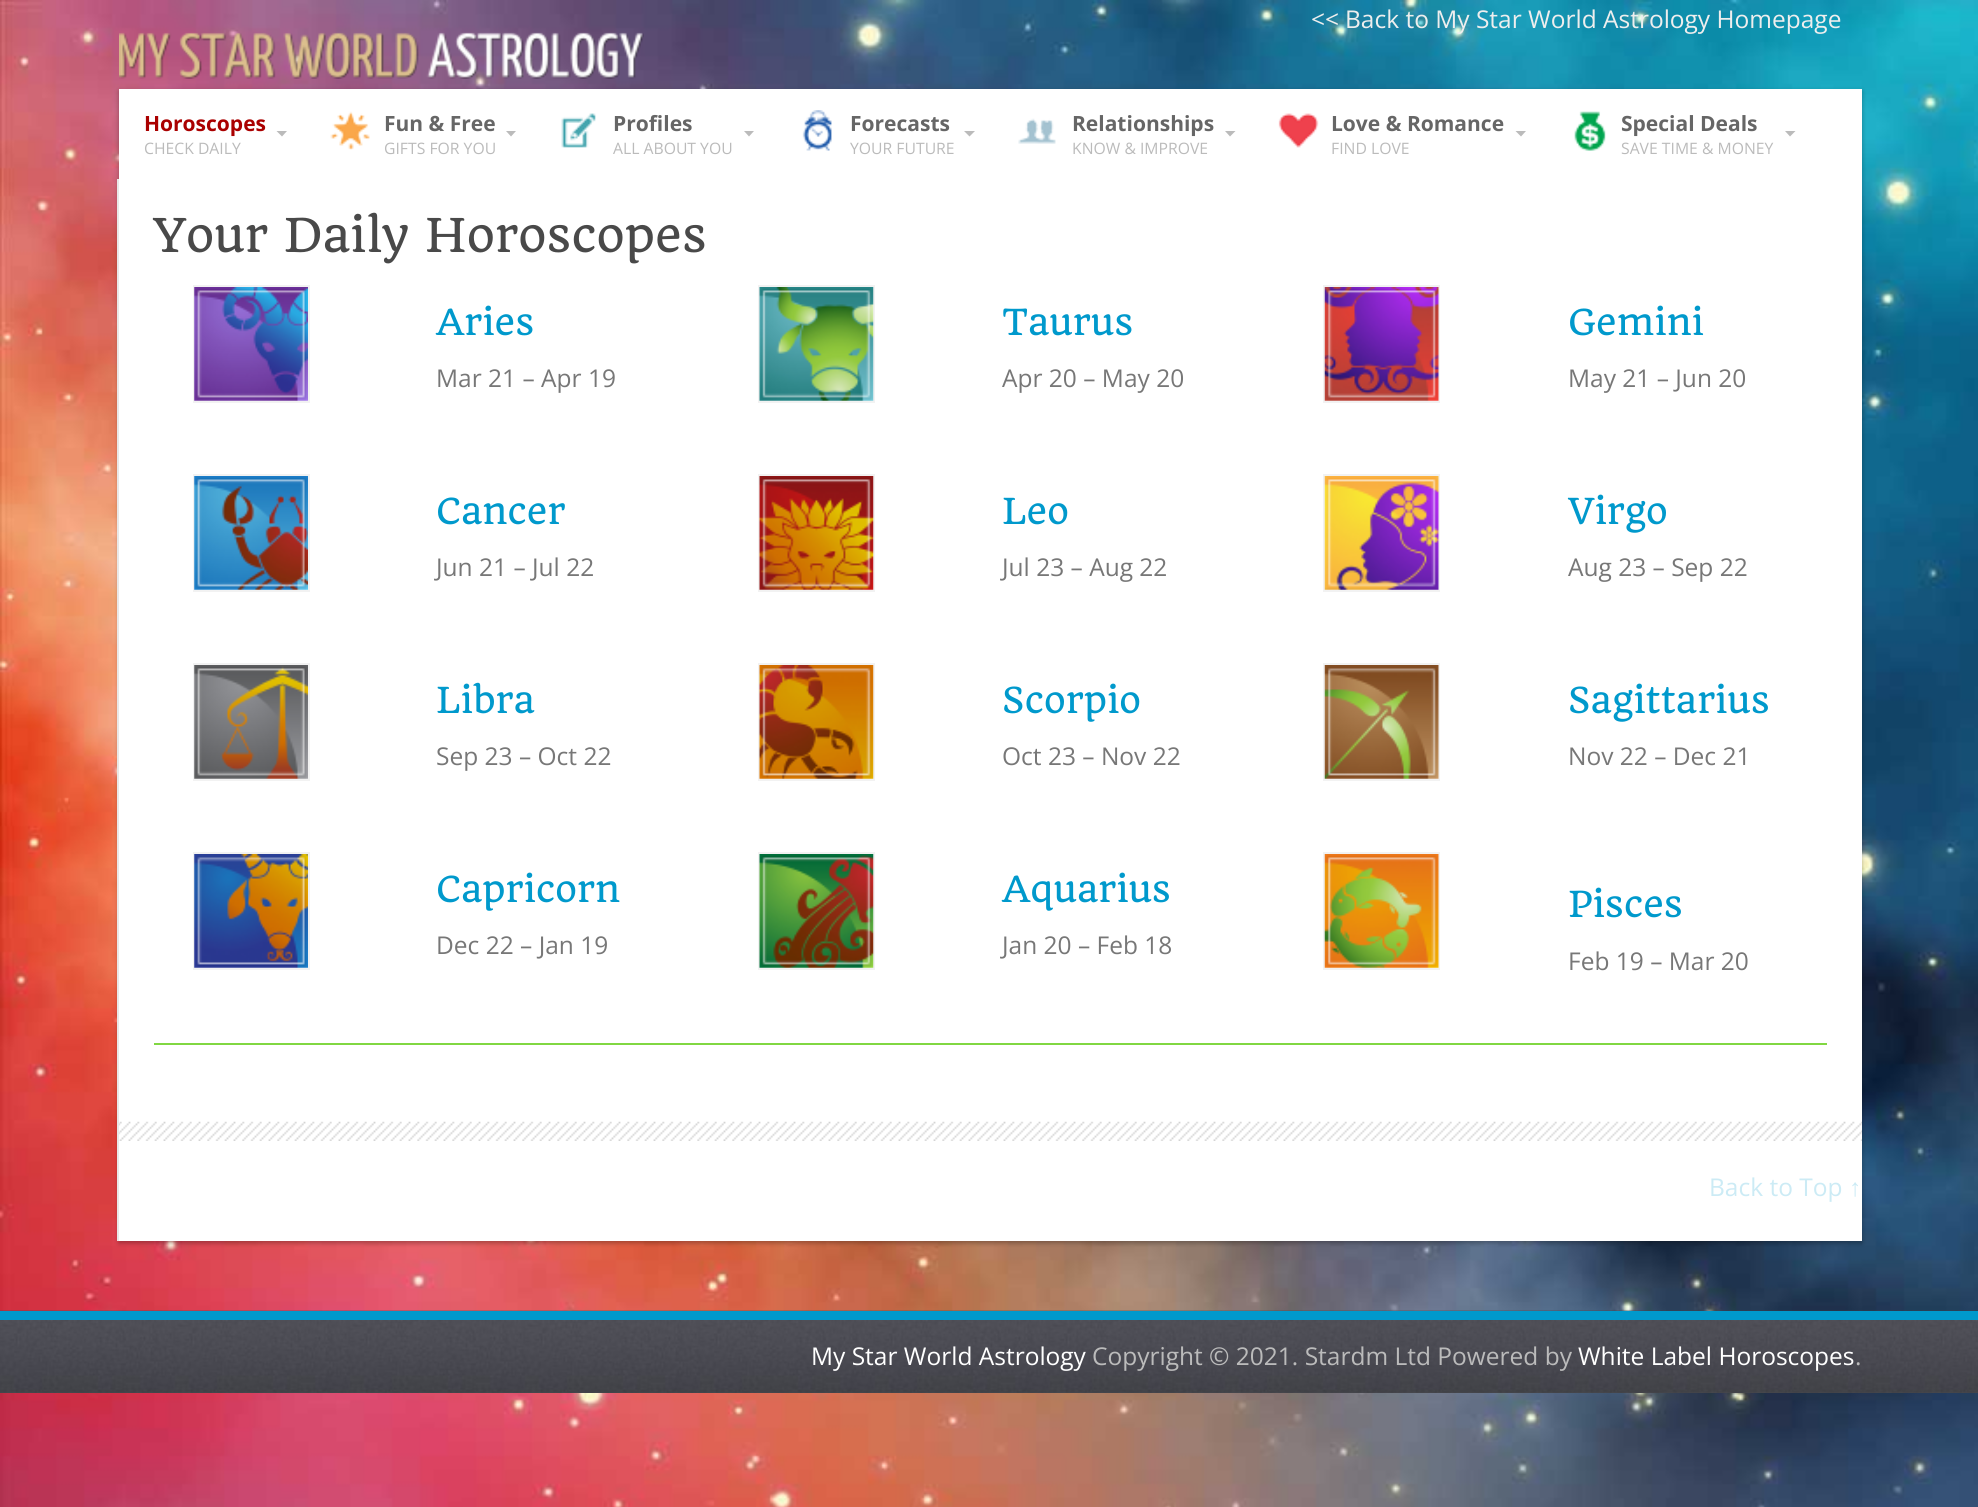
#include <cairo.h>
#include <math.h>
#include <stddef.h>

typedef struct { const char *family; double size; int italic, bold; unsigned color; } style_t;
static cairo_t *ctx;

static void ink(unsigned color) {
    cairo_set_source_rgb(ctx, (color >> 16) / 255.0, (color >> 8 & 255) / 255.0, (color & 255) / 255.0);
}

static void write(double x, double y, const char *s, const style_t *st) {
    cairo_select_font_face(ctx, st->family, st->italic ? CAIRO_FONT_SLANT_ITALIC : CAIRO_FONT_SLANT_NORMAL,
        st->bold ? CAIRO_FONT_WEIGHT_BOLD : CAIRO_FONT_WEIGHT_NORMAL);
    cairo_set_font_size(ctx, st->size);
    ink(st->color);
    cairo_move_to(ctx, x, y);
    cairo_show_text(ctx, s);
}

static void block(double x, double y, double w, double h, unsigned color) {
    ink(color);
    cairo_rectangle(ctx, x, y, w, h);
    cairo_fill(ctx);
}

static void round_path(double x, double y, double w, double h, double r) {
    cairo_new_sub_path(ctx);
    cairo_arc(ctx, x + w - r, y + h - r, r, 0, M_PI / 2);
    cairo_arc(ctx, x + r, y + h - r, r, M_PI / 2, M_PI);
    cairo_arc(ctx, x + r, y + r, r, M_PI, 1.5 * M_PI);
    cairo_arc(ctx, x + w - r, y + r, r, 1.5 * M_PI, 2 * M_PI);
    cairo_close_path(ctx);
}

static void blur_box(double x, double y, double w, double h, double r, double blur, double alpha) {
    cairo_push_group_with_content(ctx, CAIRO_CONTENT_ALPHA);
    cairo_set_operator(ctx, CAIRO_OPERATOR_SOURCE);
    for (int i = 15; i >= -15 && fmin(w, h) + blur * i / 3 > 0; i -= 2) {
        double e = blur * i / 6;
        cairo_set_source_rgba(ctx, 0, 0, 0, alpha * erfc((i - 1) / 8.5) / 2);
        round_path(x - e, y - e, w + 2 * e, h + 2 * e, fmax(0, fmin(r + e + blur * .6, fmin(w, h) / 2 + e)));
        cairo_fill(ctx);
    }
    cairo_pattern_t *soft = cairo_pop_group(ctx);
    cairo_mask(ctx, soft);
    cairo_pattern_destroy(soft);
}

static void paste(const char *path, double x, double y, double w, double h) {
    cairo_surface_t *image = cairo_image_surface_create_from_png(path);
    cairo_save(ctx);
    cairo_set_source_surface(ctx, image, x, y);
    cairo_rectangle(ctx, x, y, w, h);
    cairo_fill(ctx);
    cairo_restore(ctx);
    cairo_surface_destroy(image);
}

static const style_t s1 = {"Open Sans", 24.5, 0, 0, 0xeeeeee};
static const style_t s2 = {"Open Sans", 21, 0, 1, 0xaa0000};
static const style_t s3 = {"Open Sans", 15.75, 0, 0, 0xbbbbbb};
static const style_t s4 = {"Open Sans", 21, 0, 1, 0x666666};
static const style_t s5 = {"Quando", 45.5, 0, 0, 0x494949};
static const style_t s6 = {"Quando", 35, 0, 0, 0x0099cc};
static const style_t s7 = {"Open Sans", 24.5, 0, 0, 0x777777};
static const style_t s8 = {"Open Sans", 24.5, 0, 0, 0xccebf5};
static const style_t s9 = {"Liberation Sans", 24.5, 0, 0, 0xccebf5};
static const style_t s10 = {"Open Sans", 24.5, 0, 0, 0xffffff};
static const style_t s11 = {"Open Sans", 24.5, 0, 0, 0xbbbbbb};

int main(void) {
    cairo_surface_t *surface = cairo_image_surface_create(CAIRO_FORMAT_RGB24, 1978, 1507);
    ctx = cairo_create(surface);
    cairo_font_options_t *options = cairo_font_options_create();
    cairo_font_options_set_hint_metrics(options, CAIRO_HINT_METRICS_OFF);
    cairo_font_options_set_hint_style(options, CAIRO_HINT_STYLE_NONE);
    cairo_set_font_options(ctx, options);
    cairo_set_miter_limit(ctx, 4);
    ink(0xffffff);
    cairo_paint(ctx);
    paste("pic1.png", 0, 0, 1978, 1507);
    write(1311, 28, "<<", &s1);
    write(1345, 28, "Back to My Star World Astrology Homepage", &s1);
    paste("pic2.png", 119, 32, 525, 47);
    ink(0x000000);
    blur_box(119, 91, 1743, 1152, 0, 2.5, 0.3);
    block(119, 89, 1743, 1152, 0xffffff);
    write(144, 131, "Horoscopes", &s2);
    ink(0xbbbbbb);
    cairo_new_path(ctx);
    cairo_move_to(ctx, 276.5, 131);
    cairo_line_to(ctx, 287, 131);
    cairo_line_to(ctx, 282, 136.5);
    cairo_close_path(ctx);
    cairo_fill(ctx);
    write(144, 154, "CHECK DAILY", &s3);
    paste("pic3.png", 330, 111, 40, 39);
    write(384, 131, "Fun & Free", &s4);
    ink(0xbbbbbb);
    cairo_new_path(ctx);
    cairo_move_to(ctx, 506, 131);
    cairo_line_to(ctx, 516, 131);
    cairo_line_to(ctx, 511, 136.5);
    cairo_close_path(ctx);
    cairo_fill(ctx);
    write(384, 154, "GIFTS FOR YOU", &s3);
    paste("pic4.png", 561, 113, 35, 35);
    write(613, 131, "Profiles", &s4);
    ink(0xbbbbbb);
    cairo_new_path(ctx);
    cairo_move_to(ctx, 744, 131);
    cairo_line_to(ctx, 754, 131);
    cairo_line_to(ctx, 749, 136.5);
    cairo_close_path(ctx);
    cairo_fill(ctx);
    write(613, 154, "ALL ABOUT YOU", &s3);
    paste("pic5.png", 802, 110, 30, 41);
    write(850, 131, "Forecasts", &s4);
    ink(0xbbbbbb);
    cairo_new_path(ctx);
    cairo_move_to(ctx, 964, 131);
    cairo_line_to(ctx, 975, 131);
    cairo_line_to(ctx, 969.5, 136.5);
    cairo_close_path(ctx);
    cairo_fill(ctx);
    write(850, 154, "YOUR FUTURE", &s3);
    paste("pic6.png", 1018, 118, 38, 26);
    write(1072, 131, "Relationships", &s4);
    ink(0xbbbbbb);
    cairo_new_path(ctx);
    cairo_move_to(ctx, 1225, 131);
    cairo_line_to(ctx, 1235.5, 131);
    cairo_line_to(ctx, 1230, 136.5);
    cairo_close_path(ctx);
    cairo_fill(ctx);
    write(1072, 154, "KNOW & IMPROVE", &s3);
    paste("pic7.png", 1278, 113, 41, 35);
    write(1331, 131, "Love & Romance", &s4);
    ink(0xbbbbbb);
    cairo_new_path(ctx);
    cairo_move_to(ctx, 1515.5, 131);
    cairo_line_to(ctx, 1526, 131);
    cairo_line_to(ctx, 1521, 136.5);
    cairo_close_path(ctx);
    cairo_fill(ctx);
    write(1331, 154, "FIND LOVE", &s3);
    paste("pic8.png", 1574, 111, 32, 40);
    write(1621, 131, "Special Deals", &s4);
    ink(0xbbbbbb);
    cairo_new_path(ctx);
    cairo_move_to(ctx, 1785, 131);
    cairo_line_to(ctx, 1795.5, 131);
    cairo_line_to(ctx, 1790, 136.5);
    cairo_close_path(ctx);
    cairo_fill(ctx);
    write(1621, 154, "SAVE TIME & MONEY", &s3);
    block(117, 179, 2, 1062, 0xe8e8e8);
    paste("pic9.png", 119, 1121, 1743, 20);
    write(153, 252, "Your Daily Horoscopes", &s5);
    cairo_rectangle(ctx, 194, 286, 115, 116);
    ink(0xf2f2f2);
    cairo_stroke(ctx);
    paste("pic10.png", 194, 287, 114, 114);
    write(436, 335, "Aries", &s6);
    write(436, 387, "Mar 21 – Apr 19", &s7);
    cairo_rectangle(ctx, 759, 286, 115, 116);
    ink(0xf2f2f2);
    cairo_stroke(ctx);
    paste("pic11.png", 759, 287, 115, 114);
    write(1002, 335, "Taurus", &s6);
    write(1002, 387, "Apr 20 – May 20", &s7);
    cairo_rectangle(ctx, 1324, 286, 115, 116);
    ink(0xf2f2f2);
    cairo_stroke(ctx);
    paste("pic12.png", 1324, 287, 115, 114);
    write(1568, 335, "Gemini", &s6);
    write(1568, 387, "May 21 – Jun 20", &s7);
    cairo_rectangle(ctx, 194, 475, 115, 116);
    ink(0xf2f2f2);
    cairo_stroke(ctx);
    paste("pic13.png", 194, 476, 114, 114);
    write(436, 524, "Cancer", &s6);
    write(436, 576, "Jun 21 – Jul 22", &s7);
    cairo_rectangle(ctx, 759, 475, 115, 116);
    ink(0xf2f2f2);
    cairo_stroke(ctx);
    paste("pic14.png", 759, 476, 115, 114);
    write(1002, 524, "Leo", &s6);
    write(1002, 576, "Jul 23 – Aug 22", &s7);
    cairo_rectangle(ctx, 1324, 475, 115, 116);
    ink(0xf2f2f2);
    cairo_stroke(ctx);
    paste("pic15.png", 1324, 476, 115, 114);
    write(1568, 524, "Virgo", &s6);
    write(1568, 576, "Aug 23 – Sep 22", &s7);
    cairo_rectangle(ctx, 194, 664, 115, 116);
    ink(0xf2f2f2);
    cairo_stroke(ctx);
    paste("pic16.png", 194, 665, 114, 114);
    write(436, 713, "Libra", &s6);
    write(436, 765, "Sep 23 – Oct 22", &s7);
    cairo_rectangle(ctx, 759, 664, 115, 116);
    ink(0xf2f2f2);
    cairo_stroke(ctx);
    paste("pic17.png", 759, 665, 115, 114);
    write(1002, 713, "Scorpio", &s6);
    write(1002, 765, "Oct 23 – Nov 22", &s7);
    cairo_rectangle(ctx, 1324, 664, 115, 116);
    ink(0xf2f2f2);
    cairo_stroke(ctx);
    paste("pic18.png", 1324, 665, 115, 114);
    write(1568, 713, "Sagittarius", &s6);
    write(1568, 765, "Nov 22 – Dec 21", &s7);
    cairo_rectangle(ctx, 194, 853, 115, 116);
    ink(0xf2f2f2);
    cairo_stroke(ctx);
    paste("pic19.png", 194, 854, 114, 114);
    write(436, 902, "Capricorn", &s6);
    write(436, 954, "Dec 22 – Jan 19", &s7);
    cairo_rectangle(ctx, 759, 853, 115, 116);
    ink(0xf2f2f2);
    cairo_stroke(ctx);
    paste("pic20.png", 759, 854, 115, 114);
    write(1002, 902, "Aquarius", &s6);
    write(1002, 954, "Jan 20 – Feb 18", &s7);
    cairo_rectangle(ctx, 1324, 853, 115, 116);
    ink(0xf2f2f2);
    cairo_stroke(ctx);
    paste("pic21.png", 1324, 854, 115, 114);
    write(1568, 917, "Pisces", &s6);
    write(1568, 970, "Feb 19 – Mar 20", &s7);
    block(154, 1043, 1673, 2, 0x81d742);
    write(1709, 1196, "Back to Top", &s8);
    write(1849, 1196, "↑", &s9);
    paste("pic22.png", 0, 1310, 1978, 83);
    block(0, 1311, 1978, 9, 0x0099cc);
    write(811, 1365, "My Star World Astrology", &s10);
    write(1092, 1365, "Copyright © 2021. Stardm Ltd Powered by", &s11);
    write(1578, 1365, "White Label Horoscopes", &s10);
    write(1855, 1365, ".", &s11);
    cairo_surface_write_to_png(surface, "screenshot.png");
    cairo_font_options_destroy(options);
    cairo_destroy(ctx);
    cairo_surface_destroy(surface);
    return 0;
}
